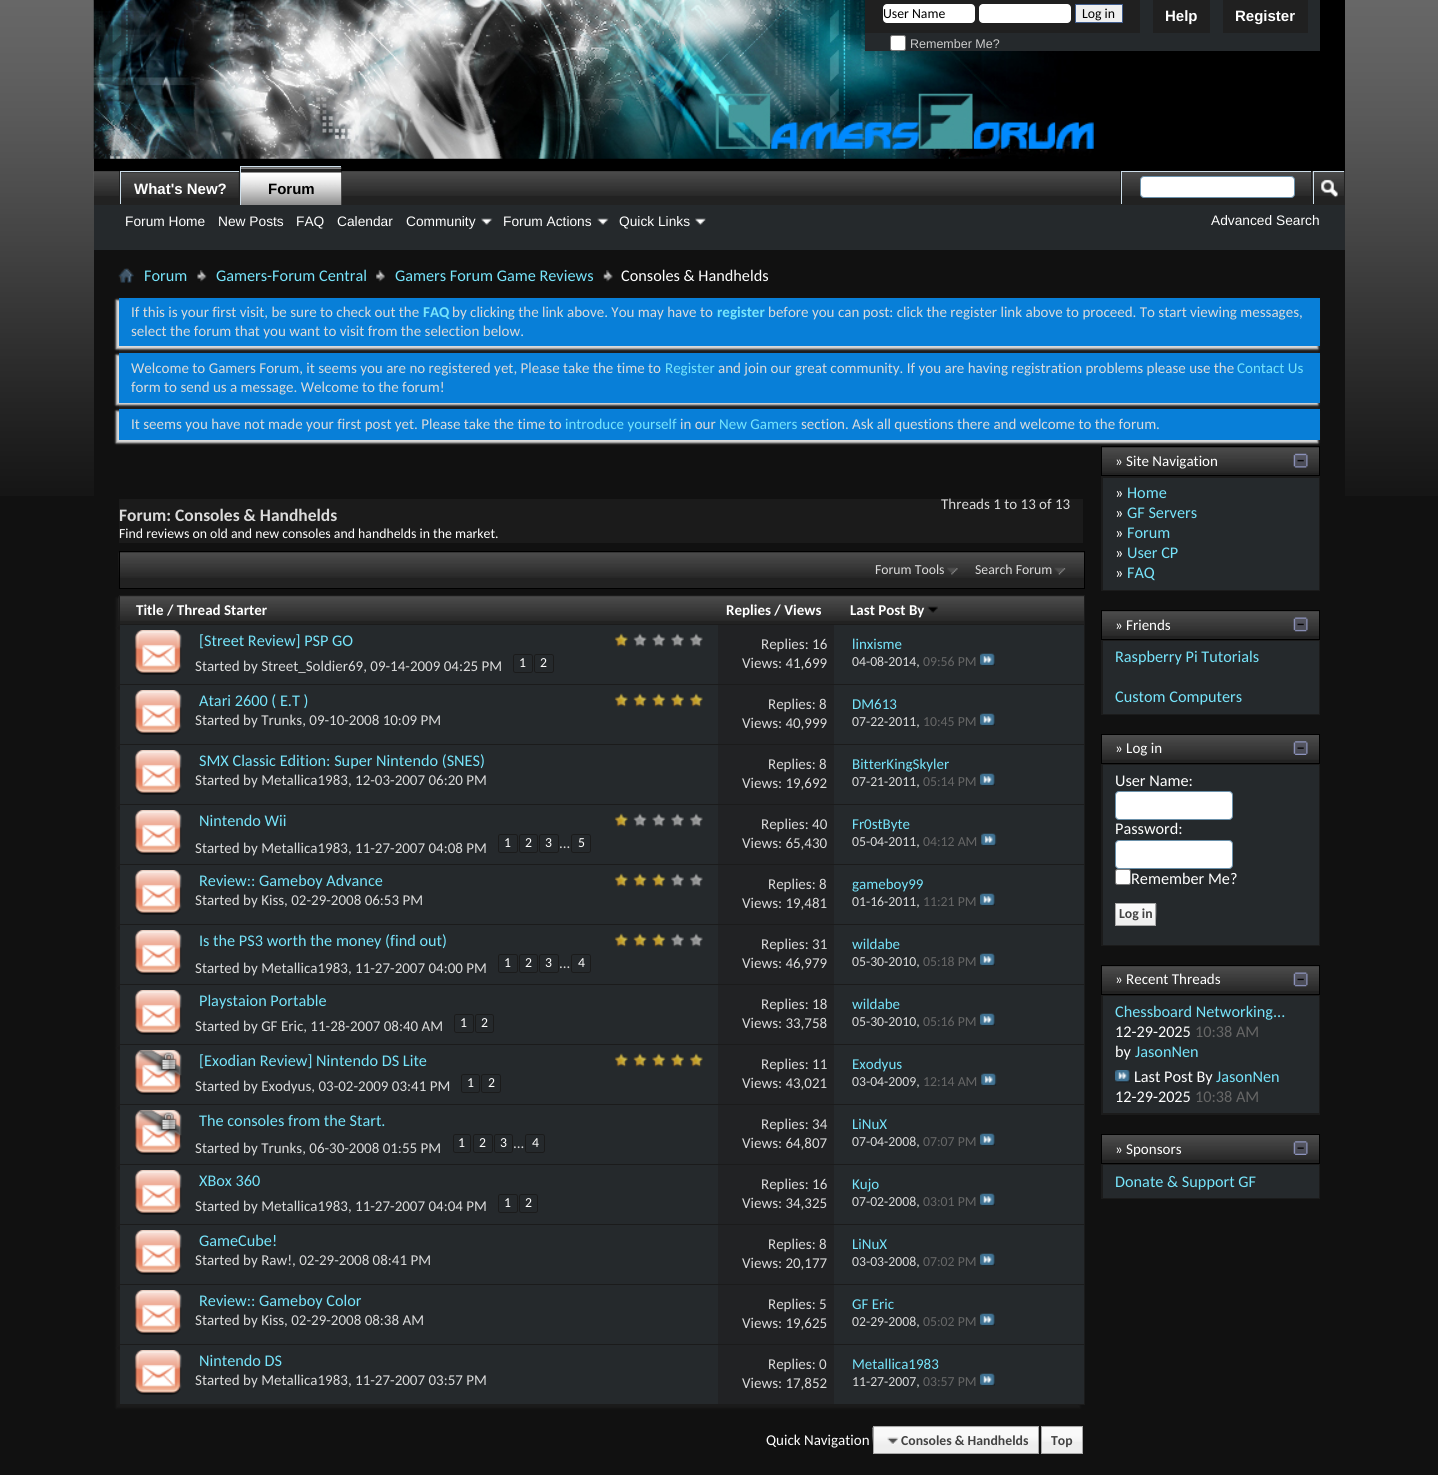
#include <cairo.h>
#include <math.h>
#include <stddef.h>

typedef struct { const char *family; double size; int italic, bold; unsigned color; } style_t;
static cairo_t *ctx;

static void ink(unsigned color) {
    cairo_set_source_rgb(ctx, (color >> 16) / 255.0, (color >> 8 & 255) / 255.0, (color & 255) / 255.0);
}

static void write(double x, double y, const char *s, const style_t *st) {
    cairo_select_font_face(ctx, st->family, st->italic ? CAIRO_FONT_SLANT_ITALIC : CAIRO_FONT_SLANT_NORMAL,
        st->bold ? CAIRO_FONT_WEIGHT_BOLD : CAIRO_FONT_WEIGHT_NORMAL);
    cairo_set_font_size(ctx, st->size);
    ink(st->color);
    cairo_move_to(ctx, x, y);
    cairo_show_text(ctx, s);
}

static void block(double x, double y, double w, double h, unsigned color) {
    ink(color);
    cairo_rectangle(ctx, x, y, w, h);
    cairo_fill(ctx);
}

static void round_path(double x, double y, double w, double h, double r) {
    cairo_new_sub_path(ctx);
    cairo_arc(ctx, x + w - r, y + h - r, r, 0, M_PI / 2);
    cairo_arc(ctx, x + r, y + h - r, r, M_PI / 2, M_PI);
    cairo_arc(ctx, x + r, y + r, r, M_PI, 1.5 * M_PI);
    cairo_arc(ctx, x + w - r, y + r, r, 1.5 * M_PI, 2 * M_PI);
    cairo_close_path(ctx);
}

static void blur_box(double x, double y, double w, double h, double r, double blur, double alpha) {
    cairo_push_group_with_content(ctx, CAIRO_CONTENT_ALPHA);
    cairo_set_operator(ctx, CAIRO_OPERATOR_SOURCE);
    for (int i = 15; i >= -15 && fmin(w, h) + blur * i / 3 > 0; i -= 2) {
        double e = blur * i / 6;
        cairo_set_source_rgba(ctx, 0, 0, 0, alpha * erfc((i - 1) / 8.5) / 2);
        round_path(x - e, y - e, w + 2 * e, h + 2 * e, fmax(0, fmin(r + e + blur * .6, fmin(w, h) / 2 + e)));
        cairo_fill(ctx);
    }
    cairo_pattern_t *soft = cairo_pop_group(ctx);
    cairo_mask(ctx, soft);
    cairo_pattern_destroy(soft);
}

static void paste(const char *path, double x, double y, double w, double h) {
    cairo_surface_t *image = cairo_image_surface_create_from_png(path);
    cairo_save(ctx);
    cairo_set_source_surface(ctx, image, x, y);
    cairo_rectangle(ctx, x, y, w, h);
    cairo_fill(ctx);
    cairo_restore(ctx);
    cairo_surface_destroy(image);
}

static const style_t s1 = {"Carlito", 13.75, 0, 0, 0x000000};
static const style_t s2 = {"Liberation Sans", 12.5, 0, 0, 0xcccccc};
static const style_t s3 = {"Liberation Sans", 15, 0, 1, 0xffffff};
static const style_t s4 = {"Liberation Sans", 15, 0, 1, 0x000000};
static const style_t s5 = {"Liberation Sans", 13.75, 0, 0, 0xffffff};
static const style_t s6 = {"Carlito", 16.25, 0, 0, 0x76e4fb};
static const style_t s7 = {"Carlito", 16.25, 0, 0, 0xffffff};
static const style_t s8 = {"Carlito", 15, 0, 0, 0xdbdbdb};
static const style_t s9 = {"Carlito", 15, 0, 1, 0x76e4fb};
static const style_t s10 = {"Carlito", 15, 0, 0, 0x76e4fb};
static const style_t s11 = {"Carlito", 17.5, 0, 1, 0xdbdbdb};
static const style_t s12 = {"Carlito", 13.8, 0, 0, 0xffffff};
static const style_t s13 = {"Carlito", 13.75, 0, 0, 0xdbdbdb};
static const style_t s14 = {"Carlito", 15, 0, 1, 0xffffff};
static const style_t s15 = {"Carlito", 13.75, 0, 0, 0xffffff};
static const style_t s16 = {"Carlito", 13.75, 0, 0, 0x666666};
static const style_t s17 = {"Carlito", 15, 0, 0, 0xffffff};
static const style_t s18 = {"Carlito", 13.75, 0, 1, 0x424242};
static const style_t s19 = {"Carlito", 16.25, 0, 0, 0x666666};

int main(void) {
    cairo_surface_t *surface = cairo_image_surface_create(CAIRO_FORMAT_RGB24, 1438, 1475);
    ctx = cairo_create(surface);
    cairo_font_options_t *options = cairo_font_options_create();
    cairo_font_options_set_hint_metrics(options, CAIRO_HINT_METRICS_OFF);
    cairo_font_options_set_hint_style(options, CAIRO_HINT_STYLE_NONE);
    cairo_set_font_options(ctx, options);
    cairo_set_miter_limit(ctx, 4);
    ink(0x111111);
    cairo_paint(ctx);
    paste("pic1.png", 0, 0, 1438, 496);
    block(94, 205, 1251, 45, 0x25292c);
    block(94, 0, 1251, 171, 0x000000);
    block(93, 0, 1, 1, 0x636363);
    paste("pic2.png", 93, 0, 1001, 159);
    block(865, 0, 455, 51, 0x25292c);
    block(865, 0, 275, 33, 0x202020);
    ink(0xffffff);
    round_path(883, 4, 92, 19, 4);
    cairo_fill(ctx);
    write(883, 18, "User Name", &s1);
    ink(0xffffff);
    round_path(979, 4, 92, 19, 4);
    cairo_fill(ctx);
    ink(0xefefef);
    cairo_rectangle(ctx, 1075.5, 4.5, 47, 18);
    cairo_fill_preserve(ctx);
    ink(0x415d8d);
    cairo_set_line_width(ctx, 1);
    cairo_stroke(ctx);
    write(1082, 18, "Log in", &s1);
    ink(0xffffff);
    round_path(890.5, 35.5, 15, 15, 2);
    cairo_fill_preserve(ctx);
    ink(0x767676);
    cairo_stroke(ctx);
    write(910, 48, "Remember Me?", &s2);
    block(1153, 0, 57, 33, 0x202020);
    write(1165, 21, "Help", &s3);
    block(1223, 0, 85, 33, 0x202020);
    write(1235, 21, "Register", &s3);
    block(94, 171, 1251, 33, 0x222222);
    paste("pic3.png", 93, 171, 1251, 25);
    block(239, 171, 1, 34, 0x222222);
    block(119, 171, 1, 34, 0x222222);
    block(121, 172, 118, 24, 0x222222);
    paste("pic4.png", 121, 172, 118, 26);
    block(120, 171, 119, 1, 0xcedfeb);
    block(120, 171, 1, 34, 0xcedfeb);
    write(134, 194, "What's New?", &s3);
    block(341, 171, 1, 33, 0x222222);
    block(241, 167, 100, 29, 0x222222);
    block(94, 204, 1251, 1, 0x222222);
    paste("pic5.png", 241, 167, 101, 38);
    block(240, 166, 101, 1, 0xcedfeb);
    block(240, 166, 1, 39, 0xcedfeb);
    write(268, 194, "Forum", &s4);
    write(125, 226, "Forum Home", &s5);
    write(218, 226, "New Posts", &s5);
    write(296, 226, "FAQ", &s5);
    write(337, 226, "Calendar", &s5);
    write(406, 226, "Community", &s5);
    paste("pic6.png", 481, 218, 12, 7);
    write(503, 226, "Forum Actions", &s5);
    paste("pic7.png", 597, 218, 12, 7);
    write(619, 226, "Quick Links", &s5);
    paste("pic8.png", 695, 218, 11, 7);
    block(1120, 171, 1, 33, 0x222222);
    block(1121, 171, 190, 1, 0xcedfeb);
    block(1121, 171, 1, 33, 0xcedfeb);
    ink(0xffffff);
    round_path(1140.5, 176.5, 154, 21, 3.5);
    cairo_fill_preserve(ctx);
    ink(0x6b91ab);
    cairo_stroke(ctx);
    block(1311, 171, 1, 33, 0x222222);
    block(1313, 171, 31, 1, 0xcedfeb);
    block(1313, 171, 1, 33, 0xcedfeb);
    paste("pic9.png", 1321, 179, 17, 19);
    write(1211, 225, "Advanced Search", &s5);
    block(94, 250, 1251, 246, 0x111111);
    paste("pic10.png", 118, 268, 16, 15);
    paste("pic11.png", 197, 270, 10, 12);
    write(144, 281, "Forum", &s6);
    paste("pic12.png", 376, 270, 9, 12);
    write(216, 281, "Gamers-Forum Central", &s6);
    paste("pic13.png", 603, 270, 10, 12);
    write(395, 281, "Gamers Forum Game Reviews", &s6);
    write(621, 281, "Consoles & Handhelds", &s7);
    block(119, 346, 1201, 63, 0x1b1b1b);
    ink(0xdbdbdb);
    blur_box(116, 300, 1202, 49, 0, 1, 1);
    block(119, 298, 1201, 48, 0x087fd8);
    write(131, 317, "If this is your first visit, be sure to check out the", &s8);
    write(423, 317, "FAQ", &s9);
    write(452, 317, "by clicking the link above. You may have to", &s8);
    write(717, 317, "register", &s9);
    write(768, 317, "before you can post: click the register link above to proceed. To start viewing messages,", &s8);
    write(131, 336, "select the forum that you want to visit from the selection below.", &s8);
    ink(0xdbdbdb);
    blur_box(116, 355, 1202, 50, 0, 1, 1);
    block(119, 353, 1201, 50, 0x087fd8);
    write(131, 373, "Welcome to Gamers Forum, it seems you are no registered yet, Please take the time to", &s8);
    write(665, 373, "Register", &s10);
    write(718, 373, "and join our great community. If you are having registration problems please use the", &s8);
    write(1237, 373, "Contact Us", &s10);
    write(131, 392, "form to send us a message. Welcome to the forum!", &s8);
    ink(0xdbdbdb);
    blur_box(116, 411, 1202, 32, 0, 1, 1);
    block(119, 409, 1201, 31, 0x087fd8);
    write(131, 429, "It seems you have not made your first post yet. Please take the time to", &s8);
    write(565, 429, "introduce yourself", &s10);
    write(680, 429, "in our", &s8);
    write(719, 429, "New Gamers", &s10);
    write(801, 429, "section. Ask all questions there and welcome to the forum.", &s8);
    block(119, 499, 964, 44, 0x1b1b1b);
    write(941, 509, "Threads 1 to 13 of 13", &s8);
    write(119, 521, "Forum: Consoles & Handhelds", &s11);
    write(119, 538, "Find reviews on old and new consoles and handhelds in the market.", &s12);
    block(120, 552, 964, 36, 0x222222);
    paste("pic14.png", 118, 552, 966, 26);
    cairo_rectangle(ctx, 119.5, 551.5, 965, 37);
    ink(0x000000);
    cairo_stroke(ctx);
    paste("pic15.png", 947, 567, 11, 8);
    write(875, 574, "Forum Tools", &s13);
    paste("pic16.png", 1054, 567, 12, 8);
    write(975, 574, "Search Forum", &s13);
    ink(0x1b1b1b);
    blur_box(116, 598, 967, 30, 0, 1, 1);
    block(120, 596, 964, 28, 0x222222);
    paste("pic17.png", 118, 596, 966, 25);
    cairo_rectangle(ctx, 119.5, 595.5, 965, 29);
    ink(0x1b1b1b);
    cairo_stroke(ctx);
    write(136, 615, "Title / Thread Starter", &s14);
    write(726, 615, "Replies / Views", &s14);
    write(850, 615, "Last Post By", &s14);
    paste("pic18.png", 927, 606, 11, 7);
    ink(0x1b1b1b);
    blur_box(116, 628, 964, 60, 0, 1, 1);
    block(120, 625, 964, 59, 0x25292c);
    block(1084, 625, 1, 720, 0x1b1b1b);
    block(1079, 684, 6, 1, 0x1b1b1b);
    paste("pic19.png", 134, 630, 48, 45);
    paste("pic20.png", 614, 633, 89, 14);
    write(199, 646, "[Street Review] PSP GO", &s6);
    write(195, 671, "Started by Street_Soldier69, 09-14-2009 04:25 PM", &s8);
    round_path(513.5, 654.5, 19, 18, 2);
    ink(0x1b1b1b);
    cairo_stroke(ctx);
    write(519, 667, "1", &s15);
    round_path(534.5, 654.5, 19, 18, 2);
    ink(0x1b1b1b);
    cairo_stroke(ctx);
    write(540, 667, "2", &s15);
    block(718, 625, 116, 59, 0x212224);
    write(761, 649, "Replies: 16", &s8);
    write(742, 668, "Views: 41,699", &s8);
    write(852, 649, "linxisme", &s10);
    write(852, 666, "04-08-2014,", &s13);
    write(923, 666, "09:56 PM", &s16);
    paste("pic21.png", 980, 653, 15, 13);
    ink(0x1b1b1b);
    blur_box(116, 688, 964, 60, 0, 1, 1);
    block(120, 685, 964, 59, 0x25292c);
    block(1079, 744, 6, 1, 0x1b1b1b);
    paste("pic19.png", 134, 690, 48, 45);
    paste("pic22.png", 614, 693, 89, 14);
    write(199, 706, "Atari 2600 ( E.T )", &s6);
    write(195, 725, "Started by Trunks, 09-10-2008 10:09 PM", &s8);
    block(718, 685, 116, 59, 0x212224);
    write(768, 709, "Replies: 8", &s8);
    write(742, 728, "Views: 40,999", &s8);
    write(852, 709, "DM613", &s10);
    write(852, 726, "07-22-2011,", &s13);
    write(923, 726, "10:45 PM", &s16);
    paste("pic21.png", 980, 713, 15, 13);
    ink(0x1b1b1b);
    blur_box(116, 748, 964, 60, 0, 1, 1);
    block(120, 745, 964, 59, 0x25292c);
    block(1079, 804, 6, 1, 0x1b1b1b);
    paste("pic19.png", 134, 750, 48, 45);
    write(199, 766, "SMX Classic Edition: Super Nintendo (SNES)", &s6);
    write(195, 785, "Started by Metallica1983, 12-03-2007 06:20 PM", &s8);
    block(718, 745, 116, 59, 0x212224);
    write(768, 769, "Replies: 8", &s8);
    write(742, 788, "Views: 19,692", &s8);
    write(852, 769, "BitterKingSkyler", &s10);
    write(852, 786, "07-21-2011,", &s13);
    write(923, 786, "05:14 PM", &s16);
    paste("pic23.png", 980, 773, 15, 13);
    ink(0x1b1b1b);
    blur_box(116, 808, 964, 60, 0, 1, 1);
    block(120, 805, 964, 59, 0x25292c);
    block(1079, 864, 6, 1, 0x1b1b1b);
    paste("pic19.png", 134, 810, 48, 45);
    paste("pic20.png", 614, 813, 89, 14);
    write(199, 826, "Nintendo Wii", &s6);
    write(195, 853, "Started by Metallica1983, 11-27-2007 04:08 PM", &s8);
    round_path(498.5, 834.5, 19, 18, 2);
    ink(0x1b1b1b);
    cairo_stroke(ctx);
    write(504, 847, "1", &s15);
    round_path(519.5, 834.5, 18, 18, 2);
    ink(0x1b1b1b);
    cairo_stroke(ctx);
    write(525, 847, "2", &s15);
    round_path(539.5, 834.5, 19, 18, 2);
    ink(0x1b1b1b);
    cairo_stroke(ctx);
    write(545, 847, "3", &s15);
    write(559, 848, "...", &s8);
    round_path(571.5, 834.5, 19, 18, 2);
    ink(0x1b1b1b);
    cairo_stroke(ctx);
    write(578, 847, "5", &s15);
    block(718, 805, 116, 59, 0x212224);
    write(761, 829, "Replies: 40", &s8);
    write(742, 848, "Views: 65,430", &s8);
    write(852, 829, "Fr0stByte", &s10);
    write(852, 846, "05-04-2011,", &s13);
    write(923, 846, "04:12 AM", &s16);
    paste("pic24.png", 981, 833, 16, 13);
    ink(0x1b1b1b);
    blur_box(116, 868, 964, 60, 0, 1, 1);
    block(120, 865, 964, 59, 0x25292c);
    block(1079, 924, 6, 1, 0x1b1b1b);
    paste("pic19.png", 134, 870, 48, 45);
    paste("pic25.png", 614, 873, 89, 14);
    write(199, 886, "Review:: Gameboy Advance", &s6);
    write(195, 905, "Started by Kiss, 02-29-2008 06:53 PM", &s8);
    block(718, 865, 116, 59, 0x212224);
    write(768, 889, "Replies: 8", &s8);
    write(742, 908, "Views: 19,481", &s8);
    write(852, 889, "gameboy99", &s10);
    write(852, 906, "01-16-2011,", &s13);
    write(923, 906, "11:21 PM", &s16);
    paste("pic21.png", 980, 893, 15, 13);
    ink(0x1b1b1b);
    blur_box(116, 928, 964, 60, 0, 1, 1);
    block(120, 925, 964, 59, 0x25292c);
    block(1079, 984, 6, 1, 0x1b1b1b);
    paste("pic19.png", 134, 930, 48, 45);
    paste("pic25.png", 614, 933, 89, 14);
    write(199, 946, "Is the PS3 worth the money (find out)", &s6);
    write(195, 973, "Started by Metallica1983, 11-27-2007 04:00 PM", &s8);
    round_path(498.5, 954.5, 19, 18, 2);
    ink(0x1b1b1b);
    cairo_stroke(ctx);
    write(504, 967, "1", &s15);
    round_path(519.5, 954.5, 18, 18, 2);
    ink(0x1b1b1b);
    cairo_stroke(ctx);
    write(525, 967, "2", &s15);
    round_path(539.5, 954.5, 19, 18, 2);
    ink(0x1b1b1b);
    cairo_stroke(ctx);
    write(545, 967, "3", &s15);
    round_path(571.5, 954.5, 19, 18, 2);
    ink(0x1b1b1b);
    cairo_stroke(ctx);
    write(578, 967, "4", &s15);
    write(559, 968, "...", &s8);
    block(718, 925, 116, 59, 0x212224);
    write(761, 949, "Replies: 31", &s8);
    write(742, 968, "Views: 46,979", &s8);
    write(852, 949, "wildabe", &s10);
    write(852, 966, "05-30-2010,", &s13);
    write(923, 966, "05:18 PM", &s16);
    paste("pic21.png", 980, 953, 15, 13);
    ink(0x1b1b1b);
    blur_box(116, 988, 964, 60, 0, 1, 1);
    block(120, 985, 964, 59, 0x25292c);
    block(1079, 1044, 6, 1, 0x1b1b1b);
    paste("pic19.png", 134, 990, 48, 45);
    write(199, 1006, "Playstaion Portable", &s6);
    write(195, 1031, "Started by GF Eric, 11-28-2007 08:40 AM", &s8);
    round_path(454.5, 1014.5, 19, 18, 2);
    ink(0x1b1b1b);
    cairo_stroke(ctx);
    write(460, 1027, "1", &s15);
    round_path(475.5, 1014.5, 18, 18, 2);
    ink(0x1b1b1b);
    cairo_stroke(ctx);
    write(481, 1027, "2", &s15);
    block(718, 985, 116, 59, 0x212224);
    write(761, 1009, "Replies: 18", &s8);
    write(742, 1028, "Views: 33,758", &s8);
    write(852, 1009, "wildabe", &s10);
    write(852, 1026, "05-30-2010,", &s13);
    write(923, 1026, "05:16 PM", &s16);
    paste("pic21.png", 980, 1013, 15, 13);
    ink(0x1b1b1b);
    blur_box(116, 1048, 964, 60, 0, 1, 1);
    block(120, 1045, 964, 59, 0x25292c);
    block(1079, 1104, 6, 1, 0x1b1b1b);
    paste("pic26.png", 134, 1050, 48, 45);
    paste("pic22.png", 614, 1053, 89, 14);
    write(199, 1066, "[Exodian Review] Nintendo DS Lite", &s6);
    write(195, 1091, "Started by Exodyus, 03-02-2009 03:41 PM", &s8);
    round_path(461.5, 1074.5, 18, 18, 2);
    ink(0x1b1b1b);
    cairo_stroke(ctx);
    write(467, 1087, "1", &s15);
    round_path(481.5, 1074.5, 19, 18, 2);
    ink(0x1b1b1b);
    cairo_stroke(ctx);
    write(488, 1087, "2", &s15);
    block(718, 1045, 116, 59, 0x212224);
    write(761, 1069, "Replies: 11", &s8);
    write(742, 1088, "Views: 43,021", &s8);
    write(852, 1069, "Exodyus", &s10);
    write(852, 1086, "03-04-2009,", &s13);
    write(923, 1086, "12:14 AM", &s16);
    paste("pic24.png", 981, 1073, 16, 13);
    ink(0x1b1b1b);
    blur_box(116, 1108, 964, 60, 0, 1, 1);
    block(120, 1105, 964, 59, 0x25292c);
    block(1079, 1164, 6, 1, 0x1b1b1b);
    paste("pic26.png", 134, 1110, 48, 45);
    write(199, 1126, "The consoles from the Start.", &s6);
    write(195, 1153, "Started by Trunks, 06-30-2008 01:55 PM", &s8);
    round_path(453.5, 1134.5, 17, 18, 2);
    ink(0x1b1b1b);
    cairo_stroke(ctx);
    write(458, 1147, "1", &s15);
    round_path(473.5, 1134.5, 19, 18, 2);
    ink(0x1b1b1b);
    cairo_stroke(ctx);
    write(479, 1147, "2", &s15);
    round_path(494.5, 1134.5, 18, 18, 2);
    ink(0x1b1b1b);
    cairo_stroke(ctx);
    write(500, 1147, "3", &s15);
    round_path(525.5, 1134.5, 19, 18, 2);
    ink(0x1b1b1b);
    cairo_stroke(ctx);
    write(532, 1147, "4", &s15);
    write(513, 1148, "...", &s8);
    block(718, 1105, 116, 59, 0x212224);
    write(761, 1129, "Replies: 34", &s8);
    write(742, 1148, "Views: 64,807", &s8);
    write(852, 1129, "LiNuX", &s10);
    write(852, 1146, "07-04-2008,", &s13);
    write(923, 1146, "07:07 PM", &s16);
    paste("pic21.png", 980, 1133, 15, 13);
    ink(0x1b1b1b);
    blur_box(116, 1168, 964, 60, 0, 1, 1);
    block(120, 1165, 964, 59, 0x25292c);
    block(1079, 1224, 6, 1, 0x1b1b1b);
    paste("pic27.png", 134, 1170, 48, 45);
    write(199, 1186, "XBox 360", &s6);
    write(195, 1211, "Started by Metallica1983, 11-27-2007 04:04 PM", &s8);
    round_path(498.5, 1194.5, 19, 18, 2);
    ink(0x1b1b1b);
    cairo_stroke(ctx);
    write(504, 1207, "1", &s15);
    round_path(519.5, 1194.5, 18, 18, 2);
    ink(0x1b1b1b);
    cairo_stroke(ctx);
    write(525, 1207, "2", &s15);
    block(718, 1165, 116, 59, 0x212224);
    write(761, 1189, "Replies: 16", &s8);
    write(742, 1208, "Views: 34,325", &s8);
    write(852, 1189, "Kujo", &s10);
    write(852, 1206, "07-02-2008,", &s13);
    write(923, 1206, "03:01 PM", &s16);
    paste("pic21.png", 980, 1193, 15, 13);
    ink(0x1b1b1b);
    blur_box(116, 1228, 964, 60, 0, 1, 1);
    block(120, 1225, 964, 59, 0x25292c);
    block(1079, 1284, 6, 1, 0x1b1b1b);
    paste("pic19.png", 134, 1230, 48, 45);
    write(199, 1246, "GameCube!", &s6);
    write(195, 1265, "Started by Raw!, 02-29-2008 08:41 PM", &s8);
    block(718, 1225, 116, 59, 0x212224);
    write(768, 1249, "Replies: 8", &s8);
    write(742, 1268, "Views: 20,177", &s8);
    write(852, 1249, "LiNuX", &s10);
    write(852, 1266, "03-03-2008,", &s13);
    write(923, 1266, "07:02 PM", &s16);
    paste("pic21.png", 980, 1253, 15, 13);
    ink(0x1b1b1b);
    blur_box(116, 1288, 964, 60, 0, 1, 1);
    block(120, 1285, 964, 59, 0x25292c);
    block(1079, 1344, 6, 1, 0x1b1b1b);
    paste("pic19.png", 134, 1290, 48, 45);
    write(199, 1306, "Review:: Gameboy Color", &s6);
    write(195, 1325, "Started by Kiss, 02-29-2008 08:38 AM", &s8);
    block(718, 1285, 116, 59, 0x212224);
    write(768, 1309, "Replies: 5", &s8);
    write(742, 1328, "Views: 19,625", &s8);
    write(852, 1309, "GF Eric", &s10);
    write(852, 1326, "02-29-2008,", &s13);
    write(923, 1326, "05:02 PM", &s16);
    paste("pic21.png", 980, 1313, 15, 13);
    ink(0x1b1b1b);
    blur_box(116, 1348, 964, 60, 0, 1, 1);
    block(120, 1345, 964, 59, 0x25292c);
    block(1084, 1345, 1, 60, 0x1b1b1b);
    block(1079, 1404, 6, 1, 0x1b1b1b);
    paste("pic19.png", 134, 1350, 48, 45);
    write(199, 1366, "Nintendo DS", &s6);
    write(195, 1385, "Started by Metallica1983, 11-27-2007 03:57 PM", &s8);
    block(718, 1345, 116, 59, 0x212224);
    write(768, 1369, "Replies: 0", &s8);
    write(742, 1388, "Views: 17,852", &s8);
    write(852, 1369, "Metallica1983", &s10);
    write(852, 1386, "11-27-2007,", &s13);
    write(923, 1386, "03:57 PM", &s16);
    paste("pic21.png", 980, 1373, 15, 13);
    write(766, 1445, "Quick Navigation", &s17);
    block(874, 1427, 164, 26, 0xeeeeee);
    paste("pic28.png", 872, 1427, 166, 18);
    block(1042, 1427, 40, 26, 0xeeeeee);
    paste("pic29.png", 1042, 1427, 40, 15);
    cairo_rectangle(ctx, 873.5, 1426.5, 165, 27);
    ink(0xa8a8a8);
    cairo_stroke(ctx);
    paste("pic30.png", 887, 1437, 12, 8);
    write(901, 1445, "Consoles & Handhelds", &s18);
    cairo_rectangle(ctx, 1041.5, 1426.5, 41, 27);
    ink(0xa8a8a8);
    cairo_stroke(ctx);
    write(1051, 1445, "Top", &s18);
    block(1102, 447, 217, 28, 0x222222);
    paste("pic31.png", 1102, 447, 217, 26);
    cairo_rectangle(ctx, 1101.5, 446.5, 218, 29);
    ink(0x000000);
    cairo_stroke(ctx);
    write(1115, 466, "» Site Navigation", &s17);
    paste("pic32.png", 1293, 453, 15, 15);
    block(1101, 476, 219, 115, 0x1b1b1b);
    block(1103, 478, 216, 112, 0x25292c);
    write(1115, 498, "»", &s7);
    write(1127, 498, "Home", &s6);
    write(1115, 518, "»", &s7);
    write(1127, 518, "GF Servers", &s6);
    write(1115, 538, "»", &s7);
    write(1127, 538, "Forum", &s6);
    write(1115, 558, "»", &s7);
    write(1127, 558, "User CP", &s6);
    write(1115, 578, "»", &s7);
    write(1127, 578, "FAQ", &s6);
    block(1102, 611, 217, 28, 0x222222);
    paste("pic33.png", 1102, 611, 217, 25);
    cairo_rectangle(ctx, 1101.5, 610.5, 218, 29);
    ink(0x000000);
    cairo_stroke(ctx);
    write(1115, 630, "» Friends", &s17);
    paste("pic34.png", 1293, 617, 15, 15);
    block(1101, 640, 219, 75, 0x1b1b1b);
    block(1103, 641, 216, 73, 0x25292c);
    write(1115, 662, "Raspberry Pi Tutorials", &s6);
    write(1115, 702, "Custom Computers", &s6);
    block(1102, 735, 217, 28, 0x222222);
    paste("pic35.png", 1102, 735, 217, 25);
    cairo_rectangle(ctx, 1101.5, 734.5, 218, 29);
    ink(0x000000);
    cairo_stroke(ctx);
    write(1115, 753, "» Log in", &s17);
    paste("pic36.png", 1293, 741, 15, 14);
    block(1101, 764, 219, 182, 0x1b1b1b);
    block(1103, 765, 216, 180, 0x25292c);
    write(1115, 786, "User Name:", &s7);
    round_path(1115.5, 791.5, 117, 28, 3.5);
    cairo_fill_preserve(ctx);
    ink(0x6b91ab);
    cairo_stroke(ctx);
    write(1115, 834, "Password:", &s7);
    round_path(1115.5, 840.5, 117, 28, 3.5);
    cairo_fill_preserve(ctx);
    ink(0x6b91ab);
    cairo_stroke(ctx);
    ink(0xffffff);
    round_path(1115.5, 869.5, 15, 15, 2);
    cairo_fill_preserve(ctx);
    ink(0x767676);
    cairo_stroke(ctx);
    write(1131, 884, "Remember Me?", &s7);
    block(1116, 904, 39, 21, 0xeeeeee);
    paste("pic37.png", 1116, 903, 41, 17);
    cairo_rectangle(ctx, 1115.5, 903.5, 40, 22);
    ink(0xa8a8a8);
    cairo_stroke(ctx);
    write(1119, 918, "Log in", &s18);
    block(1102, 966, 217, 28, 0x222222);
    paste("pic33.png", 1102, 966, 217, 25);
    cairo_rectangle(ctx, 1101.5, 965.5, 218, 29);
    ink(0x000000);
    cairo_stroke(ctx);
    write(1115, 984, "» Recent Threads", &s17);
    paste("pic34.png", 1293, 972, 15, 15);
    block(1101, 995, 219, 120, 0x1b1b1b);
    block(1103, 996, 216, 117, 0x25292c);
    write(1115, 1017, "Chessboard Networking...", &s6);
    write(1115, 1037, "12-29-2025", &s7);
    write(1195, 1037, "10:38 AM", &s19);
    write(1115, 1057, "by", &s7);
    write(1135, 1057, "JasonNen", &s6);
    paste("pic38.png", 1115, 1070, 15, 13);
    write(1134, 1082, "Last Post By", &s7);
    write(1216, 1082, "JasonNen", &s6);
    write(1115, 1102, "12-29-2025", &s7);
    write(1195, 1102, "10:38 AM", &s19);
    block(1102, 1135, 217, 28, 0x222222);
    paste("pic35.png", 1102, 1135, 217, 25);
    cairo_rectangle(ctx, 1101.5, 1134.5, 218, 29);
    ink(0x000000);
    cairo_stroke(ctx);
    write(1115, 1154, "» Sponsors", &s17);
    paste("pic36.png", 1293, 1141, 15, 14);
    block(1101, 1164, 219, 35, 0x1b1b1b);
    block(1103, 1165, 216, 33, 0x25292c);
    write(1115, 1187, "Donate & Support GF", &s6);
    cairo_surface_write_to_png(surface, "screenshot.png");
    cairo_font_options_destroy(options);
    cairo_destroy(ctx);
    cairo_surface_destroy(surface);
    return 0;
}
